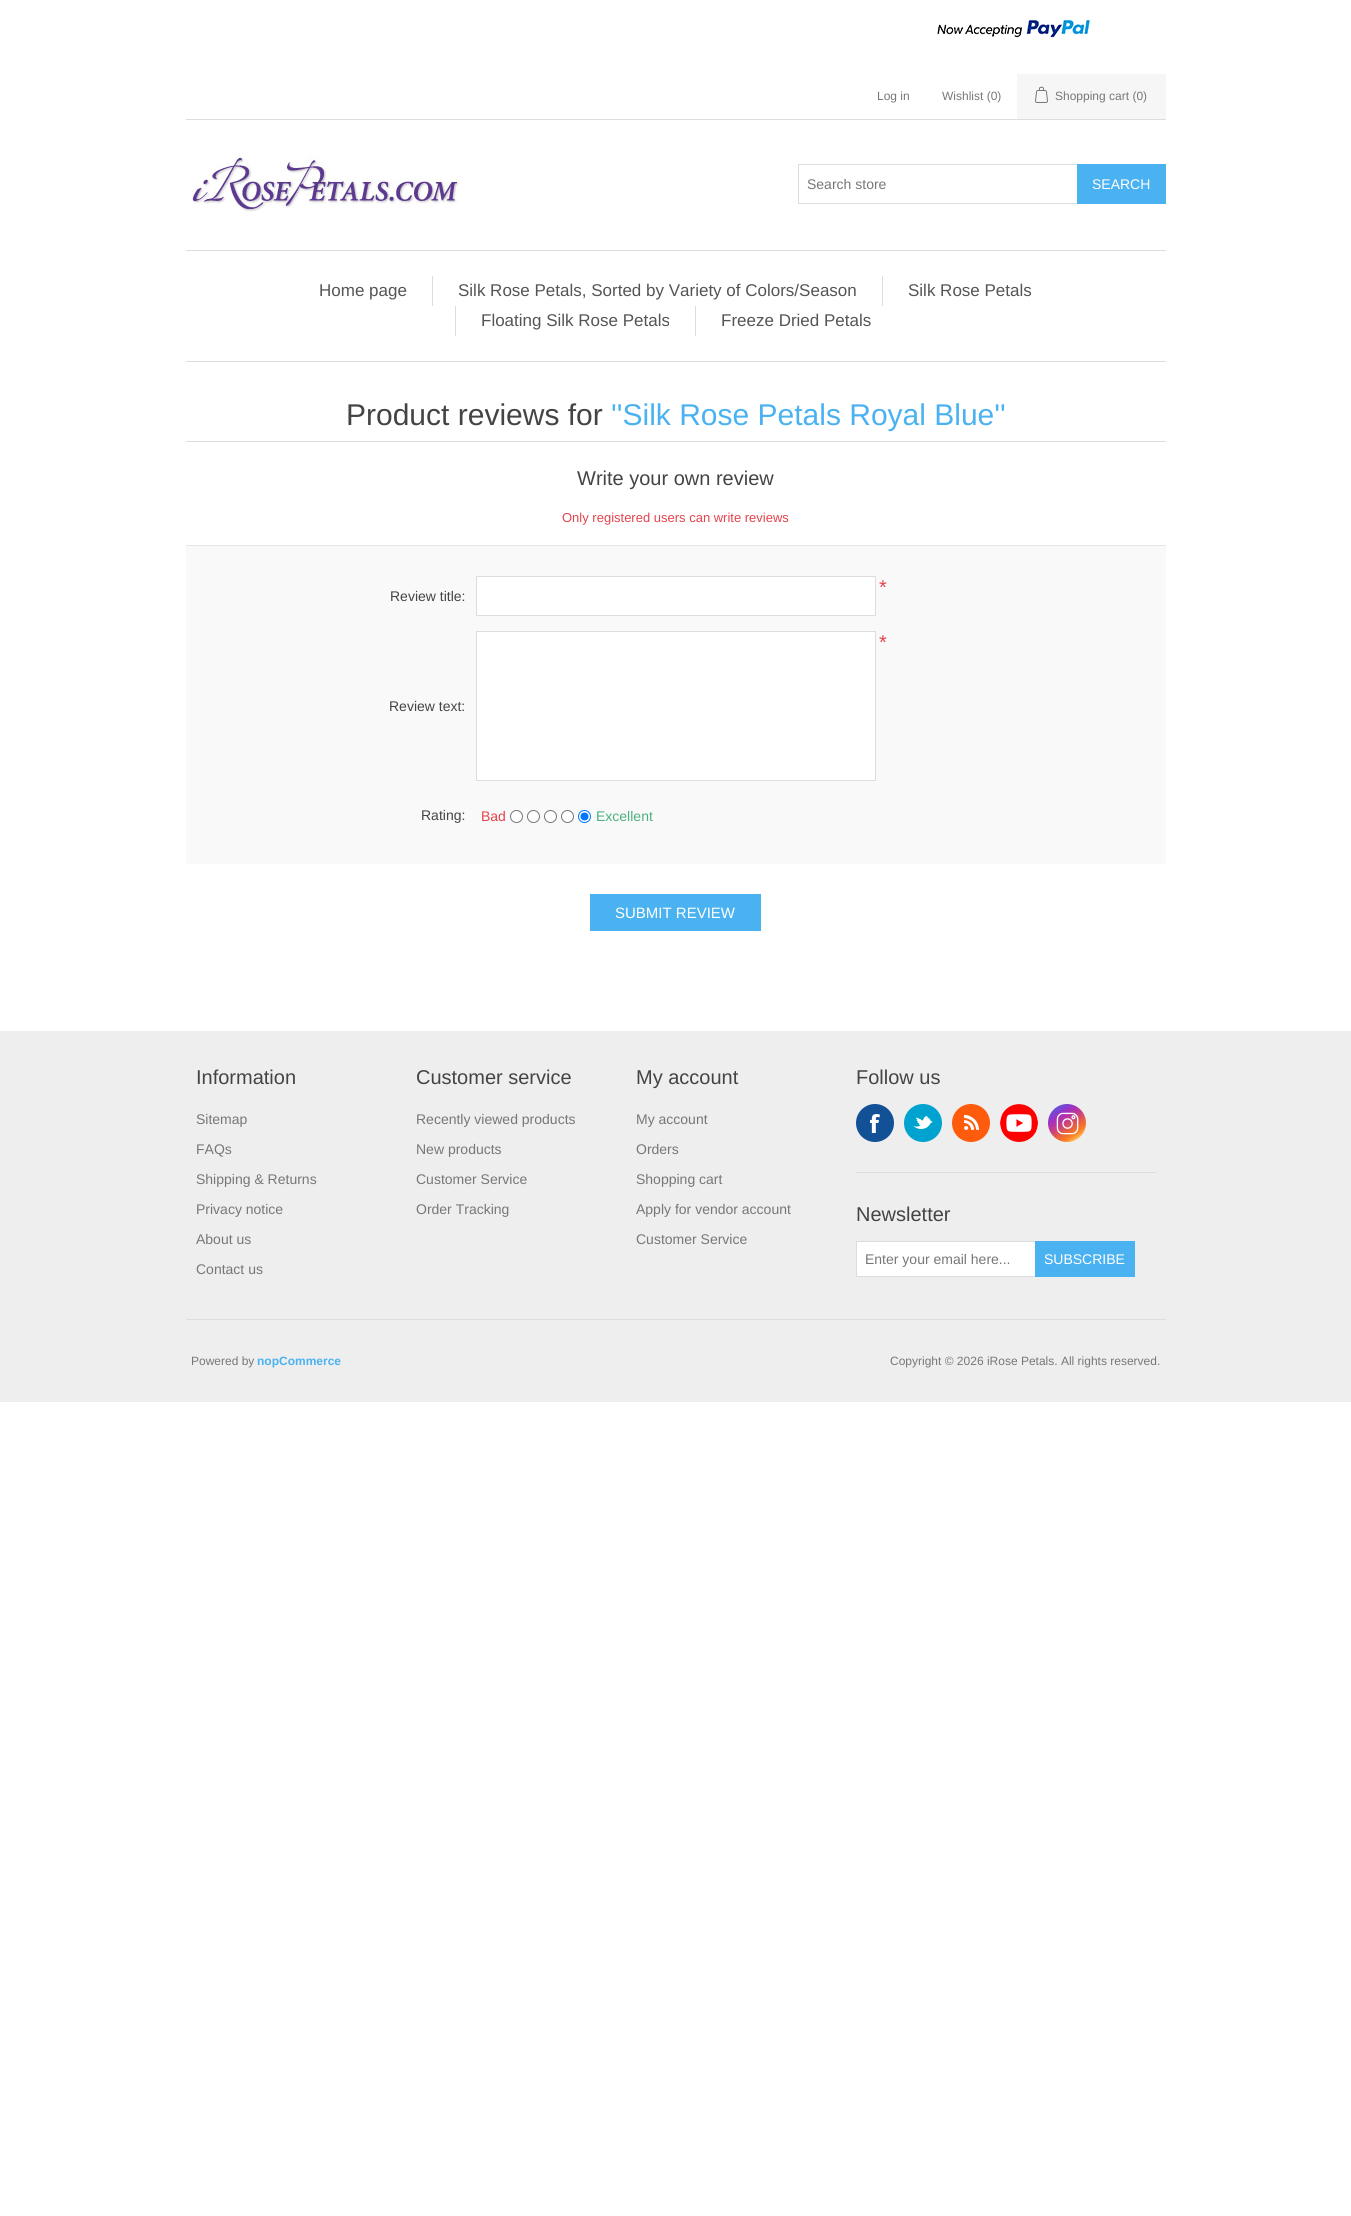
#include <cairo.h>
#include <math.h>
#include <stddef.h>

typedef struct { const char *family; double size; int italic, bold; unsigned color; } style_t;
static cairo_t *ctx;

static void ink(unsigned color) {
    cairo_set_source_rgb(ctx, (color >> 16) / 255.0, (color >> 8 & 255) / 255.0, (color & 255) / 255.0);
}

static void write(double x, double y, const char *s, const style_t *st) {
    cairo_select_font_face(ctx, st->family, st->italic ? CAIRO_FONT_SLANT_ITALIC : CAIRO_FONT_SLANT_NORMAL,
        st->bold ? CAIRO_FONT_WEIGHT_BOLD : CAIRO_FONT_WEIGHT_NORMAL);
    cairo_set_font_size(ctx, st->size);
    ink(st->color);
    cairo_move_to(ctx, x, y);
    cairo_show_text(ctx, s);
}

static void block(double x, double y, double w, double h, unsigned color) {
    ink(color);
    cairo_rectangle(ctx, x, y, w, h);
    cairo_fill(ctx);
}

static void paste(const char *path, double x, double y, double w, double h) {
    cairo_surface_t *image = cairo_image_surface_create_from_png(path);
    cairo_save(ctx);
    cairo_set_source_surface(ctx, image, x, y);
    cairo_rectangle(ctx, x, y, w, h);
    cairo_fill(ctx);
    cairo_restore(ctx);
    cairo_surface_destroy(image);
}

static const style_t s1 = {"Liberation Sans", 12, 0, 0, 0x777777};
static const style_t s2 = {"Liberation Sans", 14, 0, 0, 0x777777};
static const style_t s3 = {"Liberation Sans", 14, 0, 0, 0xffffff};
static const style_t s4 = {"Liberation Sans", 17, 0, 0, 0x555555};
static const style_t s5 = {"Liberation Sans", 30, 0, 0, 0x444444};
static const style_t s6 = {"Liberation Sans", 30, 0, 0, 0x4ab2f1};
static const style_t s7 = {"Liberation Sans", 20, 0, 0, 0x444444};
static const style_t s8 = {"Liberation Sans", 13, 0, 0, 0xe4434b};
static const style_t s9 = {"Liberation Sans", 20, 0, 0, 0xe4434b};
static const style_t s10 = {"Liberation Sans", 14, 0, 0, 0x444444};
static const style_t s11 = {"Liberation Sans", 14, 0, 0, 0xe4434b};
static const style_t s12 = {"Liberation Sans", 14, 0, 0, 0x4cb17c};
static const style_t s13 = {"Liberation Sans", 15, 0, 0, 0xffffff};
static const style_t s14 = {"Liberation Sans", 12, 0, 1, 0x4ab2f1};

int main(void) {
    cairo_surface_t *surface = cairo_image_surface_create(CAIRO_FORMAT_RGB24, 1351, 2216);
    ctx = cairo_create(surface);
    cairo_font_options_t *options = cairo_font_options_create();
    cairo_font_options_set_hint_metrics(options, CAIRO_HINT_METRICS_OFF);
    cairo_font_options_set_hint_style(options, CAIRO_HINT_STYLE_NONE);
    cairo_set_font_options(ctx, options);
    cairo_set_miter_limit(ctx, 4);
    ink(0xffffff);
    cairo_paint(ctx);
    block(186, 119, 980, 1, 0xdddddd);
    paste("pic1.png", 937, 20, 153, 18);
    write(877, 100, "Log in", &s1);
    write(942, 100, "Wishlist (0)", &s1);
    block(1017, 74, 149, 45, 0xf6f6f6);
    paste("pic2.png", 1035, 86, 13, 17);
    write(1055, 100, "Shopping cart (0)", &s1);
    paste("pic3.png", 187, 155, 272, 57);
    cairo_rectangle(ctx, 798.5, 164.5, 279, 39);
    ink(0xdddddd);
    cairo_set_line_width(ctx, 1);
    cairo_stroke(ctx);
    write(807, 189, "Search store", &s2);
    block(1077, 164, 89, 40, 0x4ab2f1);
    write(1092, 189, "SEARCH", &s3);
    block(186, 250, 980, 1, 0xdddddd);
    block(186, 361, 980, 1, 0xdddddd);
    write(319, 296, "Home page", &s4);
    block(432, 276, 1, 30, 0xdddddd);
    write(458, 296, "Silk Rose Petals, Sorted by Variety of Colors/Season", &s4);
    block(882, 276, 1, 30, 0xdddddd);
    write(908, 296, "Silk Rose Petals", &s4);
    block(455, 306, 1, 30, 0xdddddd);
    write(481, 326, "Floating Silk Rose Petals", &s4);
    block(695, 306, 1, 30, 0xdddddd);
    write(721, 326, "Freeze Dried Petals", &s4);
    block(186, 441, 980, 1, 0xdddddd);
    write(346, 425, "Product reviews for", &s5);
    write(611, 425, "''Silk Rose Petals Royal Blue''", &s6);
    write(577, 485, "Write your own review", &s7);
    write(562, 522, "Only registered users can write reviews", &s8);
    block(186, 546, 980, 318, 0xf9f9f9);
    block(186, 545, 980, 1, 0xe6e6e6);
    ink(0xffffff);
    cairo_rectangle(ctx, 476.5, 576.5, 399, 39);
    cairo_fill_preserve(ctx);
    ink(0xdddddd);
    cairo_stroke(ctx);
    write(879, 594, "*", &s9);
    write(390, 601, "Review title:", &s10);
    ink(0xffffff);
    cairo_rectangle(ctx, 476.5, 631.5, 399, 149);
    cairo_fill_preserve(ctx);
    ink(0xdddddd);
    cairo_stroke(ctx);
    write(879, 649, "*", &s9);
    write(389, 711, "Review text:", &s10);
    write(421, 820, "Rating:", &s10);
    write(481, 821, "Bad", &s11);
    ink(0xffffff);
    cairo_new_path(ctx);
    cairo_arc(ctx, 516.5, 816.5, 6, 0, 2 * M_PI);
    cairo_fill_preserve(ctx);
    ink(0x767676);
    cairo_stroke(ctx);
    ink(0xffffff);
    cairo_arc(ctx, 533.5, 816.5, 6, 0, 2 * M_PI);
    cairo_fill_preserve(ctx);
    ink(0x767676);
    cairo_stroke(ctx);
    ink(0xffffff);
    cairo_arc(ctx, 550.5, 816.5, 6, 0, 2 * M_PI);
    cairo_fill_preserve(ctx);
    ink(0x767676);
    cairo_stroke(ctx);
    ink(0xffffff);
    cairo_arc(ctx, 567.5, 816.5, 6, 0, 2 * M_PI);
    cairo_fill_preserve(ctx);
    ink(0x767676);
    cairo_stroke(ctx);
    ink(0xffffff);
    cairo_arc(ctx, 584.5, 816.5, 6, 0, 2 * M_PI);
    cairo_fill_preserve(ctx);
    ink(0x0075ff);
    cairo_stroke(ctx);
    cairo_arc(ctx, 584.5, 816.5, 4, 0, 2 * M_PI);
    cairo_fill(ctx);
    write(596, 821, "Excellent", &s12);
    block(590, 894, 171, 37, 0x4ab2f1);
    write(615, 918, "SUBMIT REVIEW", &s13);
    block(0, 1031, 1351, 371, 0xeeeeee);
    block(186, 1319, 980, 1, 0xdddddd);
    write(196, 1084, "Information", &s7);
    write(196, 1124, "Sitemap", &s2);
    write(196, 1154, "FAQs", &s2);
    write(196, 1184, "Shipping & Returns", &s2);
    write(196, 1214, "Privacy notice", &s2);
    write(196, 1244, "About us", &s2);
    write(196, 1274, "Contact us", &s2);
    write(416, 1084, "Customer service", &s7);
    write(416, 1124, "Recently viewed products", &s2);
    write(416, 1154, "New products", &s2);
    write(416, 1184, "Customer Service", &s2);
    write(416, 1214, "Order Tracking", &s2);
    write(636, 1084, "My account", &s7);
    write(636, 1124, "My account", &s2);
    write(636, 1154, "Orders", &s2);
    write(636, 1184, "Shopping cart", &s2);
    write(636, 1214, "Apply for vendor account", &s2);
    write(636, 1244, "Customer Service", &s2);
    write(856, 1084, "Follow us", &s7);
    block(856, 1172, 300, 1, 0xdddddd);
    paste("pic4.png", 856, 1104, 38, 38);
    paste("pic5.png", 904, 1104, 38, 38);
    paste("pic6.png", 952, 1104, 38, 38);
    paste("pic7.png", 1000, 1104, 38, 38);
    paste("pic8.png", 1048, 1104, 38, 38);
    write(856, 1221, "Newsletter", &s7);
    ink(0xffffff);
    cairo_rectangle(ctx, 856.5, 1241.5, 179, 35);
    cairo_fill_preserve(ctx);
    ink(0xdddddd);
    cairo_stroke(ctx);
    write(865, 1264, "Enter your email here...", &s2);
    block(1035, 1241, 100, 36, 0x4ab2f1);
    write(1044, 1264, "SUBSCRIBE", &s3);
    write(191, 1365, "Powered by", &s1);
    write(257, 1365, "nopCommerce", &s14);
    write(890, 1365, "Copyright © 2026 iRose Petals. All rights reserved.", &s1);
    cairo_surface_write_to_png(surface, "screenshot.png");
    cairo_font_options_destroy(options);
    cairo_destroy(ctx);
    cairo_surface_destroy(surface);
    return 0;
}
